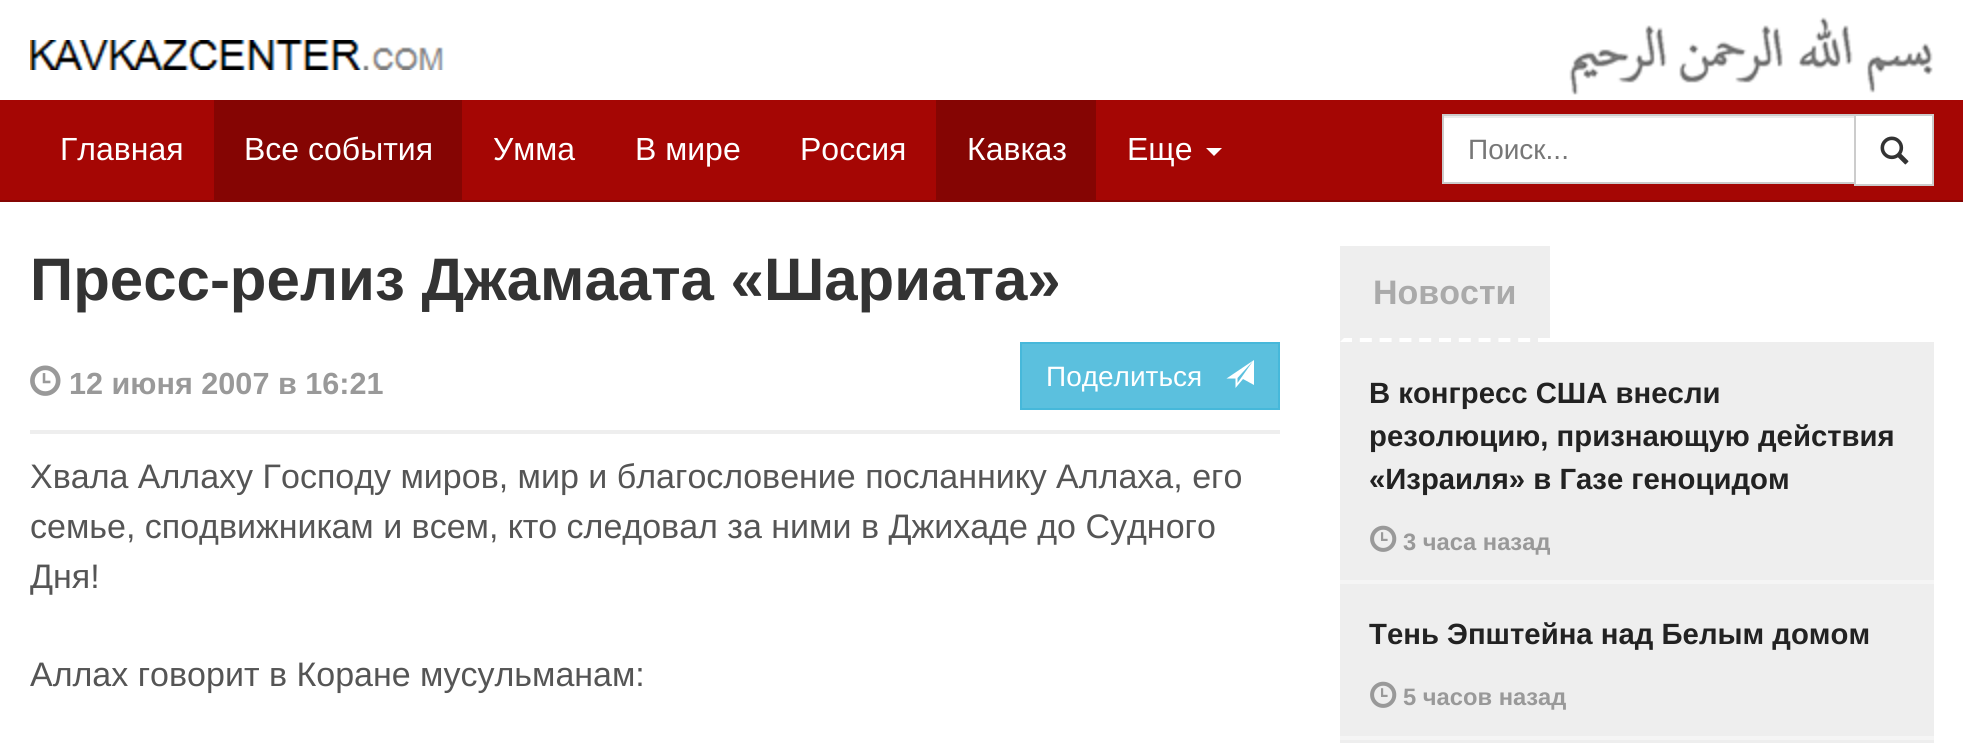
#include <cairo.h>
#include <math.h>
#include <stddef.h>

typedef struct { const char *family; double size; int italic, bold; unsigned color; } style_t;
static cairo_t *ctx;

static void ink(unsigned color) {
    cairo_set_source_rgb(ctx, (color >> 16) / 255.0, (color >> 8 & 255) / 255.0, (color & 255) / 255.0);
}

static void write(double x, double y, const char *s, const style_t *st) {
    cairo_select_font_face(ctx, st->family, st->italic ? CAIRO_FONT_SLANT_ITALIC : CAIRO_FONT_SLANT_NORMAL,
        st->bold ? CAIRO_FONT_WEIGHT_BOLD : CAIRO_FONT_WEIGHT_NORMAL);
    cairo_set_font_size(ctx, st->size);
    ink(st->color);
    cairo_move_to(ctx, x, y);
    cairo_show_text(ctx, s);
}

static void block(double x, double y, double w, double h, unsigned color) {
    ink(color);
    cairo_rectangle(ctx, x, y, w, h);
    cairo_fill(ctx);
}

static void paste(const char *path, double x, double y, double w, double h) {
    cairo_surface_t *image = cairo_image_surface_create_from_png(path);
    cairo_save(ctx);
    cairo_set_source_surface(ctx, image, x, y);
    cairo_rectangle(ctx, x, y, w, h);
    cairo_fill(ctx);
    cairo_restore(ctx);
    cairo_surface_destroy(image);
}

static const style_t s1 = {"Liberation Sans", 32, 0, 0, 0xffffff};
static const style_t s2 = {"Liberation Sans", 28, 0, 0, 0x777777};
static const style_t s3 = {"Liberation Sans", 60, 0, 1, 0x333333};
static const style_t s4 = {"Liberation Sans", 30.6, 0, 1, 0x999999};
static const style_t s5 = {"Liberation Sans", 28, 0, 0, 0xffffff};
static const style_t s6 = {"Liberation Sans", 34, 0, 0, 0x555555};
static const style_t s7 = {"Liberation Sans", 34, 0, 1, 0xaaaaaa};
static const style_t s8 = {"Liberation Sans", 29.3, 0, 1, 0x222222};
static const style_t s9 = {"Liberation Sans", 23.75, 0, 1, 0x999999};

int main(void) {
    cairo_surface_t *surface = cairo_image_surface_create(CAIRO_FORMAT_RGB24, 1963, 743);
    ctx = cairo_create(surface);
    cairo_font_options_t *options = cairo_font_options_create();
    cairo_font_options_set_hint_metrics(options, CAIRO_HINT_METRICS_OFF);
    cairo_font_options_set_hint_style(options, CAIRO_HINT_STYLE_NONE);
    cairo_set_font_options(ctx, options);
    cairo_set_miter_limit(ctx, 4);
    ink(0xffffff);
    cairo_paint(ctx);
    paste("pic1.png", 30, 40, 414, 30);
    paste("pic2.png", 1569, 17, 364, 78);
    block(0, 100, 1963, 100, 0xa50604);
    block(0, 200, 1963, 2, 0x850503);
    write(60, 160, "Главная", &s1);
    block(214, 100, 248, 100, 0x850503);
    write(244, 160, "Все события", &s1);
    write(493, 160, "Умма", &s1);
    write(635, 160, "В мире", &s1);
    write(800, 160, "Россия", &s1);
    block(936, 100, 160, 100, 0x850503);
    write(967, 160, "Кавказ", &s1);
    write(1127, 160, "Еще", &s1);
    cairo_new_path(ctx);
    cairo_move_to(ctx, 1206, 148);
    cairo_line_to(ctx, 1222, 148);
    cairo_line_to(ctx, 1214, 156);
    cairo_close_path(ctx);
    cairo_fill(ctx);
    block(1444, 118, 410, 64, 0xffffff);
    block(1444, 116, 410, 2, 0xececec);
    ink(0xffffff);
    cairo_rectangle(ctx, 1855, 115, 78, 70);
    cairo_fill_preserve(ctx);
    ink(0xcccccc);
    cairo_stroke(ctx);
    cairo_rectangle(ctx, 1443, 115, 412, 68);
    cairo_stroke(ctx);
    write(1468, 159, "Поиск...", &s2);
    paste("pic3.png", 1880, 136, 29, 29);
    write(30, 300, "Пресс-релиз Джамаата «Шариата»", &s3);
    paste("pic4.png", 30, 365, 31, 31);
    write(69, 394, "12 июня 2007 в 16:21", &s4);
    ink(0x5bc0de);
    cairo_rectangle(ctx, 1021, 343, 258, 66);
    cairo_fill_preserve(ctx);
    ink(0x46b8da);
    cairo_stroke(ctx);
    write(1046, 386, "Поделиться", &s5);
    cairo_new_path(ctx);
    cairo_move_to(ctx, 1226.5, 378.5);
    cairo_line_to(ctx, 1254, 360);
    cairo_line_to(ctx, 1254, 385);
    cairo_line_to(ctx, 1243, 379);
    cairo_line_to(ctx, 1235.5, 388);
    cairo_line_to(ctx, 1235.5, 378.5);
    cairo_close_path(ctx);
    cairo_move_to(ctx, 1237.5, 383);
    cairo_line_to(ctx, 1253, 361);
    cairo_line_to(ctx, 1237.5, 378);
    cairo_close_path(ctx);
    cairo_fill(ctx);
    block(30, 430, 1250, 4, 0xeeeeee);
    write(30, 488, "Хвала Аллаху Господу миров, мир и благословение посланнику Аллаха, его", &s6);
    write(30, 538, "семье, сподвижникам и всем, кто следовал за ними в Джихаде до Судного", &s6);
    write(30, 588, "Дня!", &s6);
    write(30, 686, "Аллах говорит в Коране мусульманам:", &s6);
    block(1340, 246, 210, 96, 0xeeeeee);
    cairo_new_path(ctx);
    cairo_move_to(ctx, 1340, 340);
    cairo_line_to(ctx, 1550, 340);
    ink(0xffffff);
    cairo_set_line_width(ctx, 4);
    cairo_set_dash(ctx, (double[]){12, 7.8}, 2, 0);
    cairo_stroke(ctx);
    ink(0xeeeeee);
    cairo_new_path(ctx);
    cairo_move_to(ctx, 1340, 342);
    cairo_line_to(ctx, 1340, 246);
    cairo_line_to(ctx, 1344, 250);
    cairo_line_to(ctx, 1344, 338);
    cairo_close_path(ctx);
    cairo_fill(ctx);
    write(1373, 304, "Новости", &s7);
    block(1340, 342, 594, 238, 0xeeeeee);
    block(1340, 580, 594, 4, 0xf5f5f5);
    write(1369, 403, "В конгресс США внесли", &s8);
    write(1369, 446, "резолюцию, признающую действия", &s8);
    write(1369, 489, "«Израиля» в Газе геноцидом", &s8);
    paste("pic5.png", 1370, 525, 27, 27);
    write(1403, 550, "3 часа назад", &s9);
    block(1340, 584, 594, 152, 0xeeeeee);
    block(1340, 736, 594, 4, 0xf5f5f5);
    write(1369, 644, "Тень Эпштейна над Белым домом", &s8);
    paste("pic5.png", 1370, 681, 27, 27);
    write(1403, 705, "5 часов назад", &s9);
    block(1340, 740, 594, 3, 0xeeeeee);
    cairo_surface_write_to_png(surface, "screenshot.png");
    cairo_font_options_destroy(options);
    cairo_destroy(ctx);
    cairo_surface_destroy(surface);
    return 0;
}
